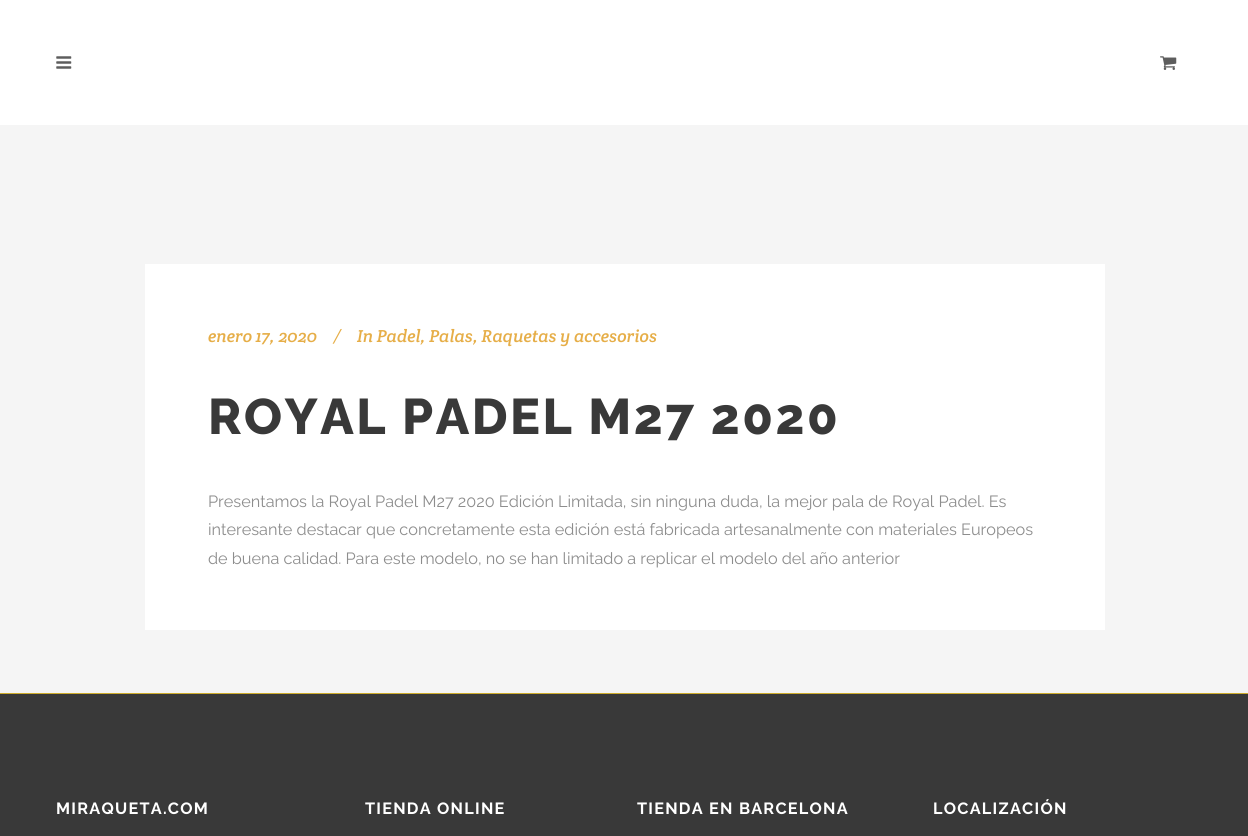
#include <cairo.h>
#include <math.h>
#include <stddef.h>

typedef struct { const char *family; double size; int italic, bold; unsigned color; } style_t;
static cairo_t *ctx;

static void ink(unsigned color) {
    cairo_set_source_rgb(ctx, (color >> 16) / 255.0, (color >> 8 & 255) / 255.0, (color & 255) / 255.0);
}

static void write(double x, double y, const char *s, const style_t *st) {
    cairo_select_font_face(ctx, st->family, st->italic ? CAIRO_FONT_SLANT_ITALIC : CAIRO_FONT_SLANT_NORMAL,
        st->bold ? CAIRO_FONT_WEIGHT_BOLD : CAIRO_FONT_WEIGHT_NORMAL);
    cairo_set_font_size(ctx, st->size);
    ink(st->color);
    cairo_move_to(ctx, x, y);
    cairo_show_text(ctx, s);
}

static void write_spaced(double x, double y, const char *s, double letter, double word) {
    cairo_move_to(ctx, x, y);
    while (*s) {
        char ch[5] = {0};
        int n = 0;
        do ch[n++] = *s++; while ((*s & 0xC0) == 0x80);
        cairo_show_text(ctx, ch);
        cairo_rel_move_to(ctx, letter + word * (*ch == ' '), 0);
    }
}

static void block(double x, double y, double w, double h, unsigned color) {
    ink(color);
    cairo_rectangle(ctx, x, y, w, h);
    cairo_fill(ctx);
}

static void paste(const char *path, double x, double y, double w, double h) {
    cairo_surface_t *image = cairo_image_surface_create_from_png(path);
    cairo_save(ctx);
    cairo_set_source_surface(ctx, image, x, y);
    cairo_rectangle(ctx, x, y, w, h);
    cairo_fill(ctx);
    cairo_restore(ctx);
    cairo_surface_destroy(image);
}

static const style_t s1 = {"Crete Round", 17.5, 1, 0, 0xe6ae48};
static const style_t s2 = {"Raleway", 16.25, 0, 0, 0x8d8d8d};

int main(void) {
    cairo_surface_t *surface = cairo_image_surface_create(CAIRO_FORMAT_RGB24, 1248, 836);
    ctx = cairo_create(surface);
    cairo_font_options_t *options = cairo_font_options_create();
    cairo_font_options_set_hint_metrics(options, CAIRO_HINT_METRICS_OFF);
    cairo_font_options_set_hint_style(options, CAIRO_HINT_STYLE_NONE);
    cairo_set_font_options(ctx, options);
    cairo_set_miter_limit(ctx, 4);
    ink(0xf5f5f5);
    cairo_paint(ctx);
    block(0, 0, 1248, 125, 0xffffff);
    paste("pic1.png", 56, 56, 16, 13);
    paste("pic2.png", 1160, 56, 17, 14);
    block(145, 264, 960, 366, 0xffffff);
    write(208, 342, "enero 17, 2020", &s1);
    write(333, 342, "/", &s1);
    write(357, 342, "In Padel, Palas, Raquetas y accesorios", &s1);
    cairo_select_font_face(ctx, "Raleway ExtraBold", CAIRO_FONT_SLANT_NORMAL, CAIRO_FONT_WEIGHT_NORMAL);
    cairo_set_font_size(ctx, 50);
    ink(0x393939);
    write_spaced(208, 434, "ROYAL PADEL M27 2020", 2.5, 0);
    write(208, 507, "Presentamos la Royal Padel M27 2020 Edición Limitada, sin ninguna duda, la mejor pala de Royal Padel. Es", &s2);
    write(208, 535, "interesante destacar que concretamente esta edición está fabricada artesanalmente con materiales Europeos", &s2);
    write(208, 564, "de buena calidad. Para este modelo, no se han limitado a replicar el modelo del año anterior", &s2);
    block(0, 693, 1248, 1, 0xcdab2c);
    block(0, 694, 1248, 142, 0x393939);
    cairo_select_font_face(ctx, "Raleway", CAIRO_FONT_SLANT_NORMAL, CAIRO_FONT_WEIGHT_BOLD);
    ink(0xffffff);
    write_spaced(56, 814, "MIRAQUETA.COM", 1.25, 0);
    write_spaced(365, 814, "TIENDA ONLINE", 1.25, 0);
    write_spaced(637, 814, "TIENDA EN BARCELONA", 1.25, 0);
    write_spaced(933, 814, "LOCALIZACIÓN", 1.25, 0);
    cairo_surface_write_to_png(surface, "screenshot.png");
    cairo_font_options_destroy(options);
    cairo_destroy(ctx);
    cairo_surface_destroy(surface);
    return 0;
}
